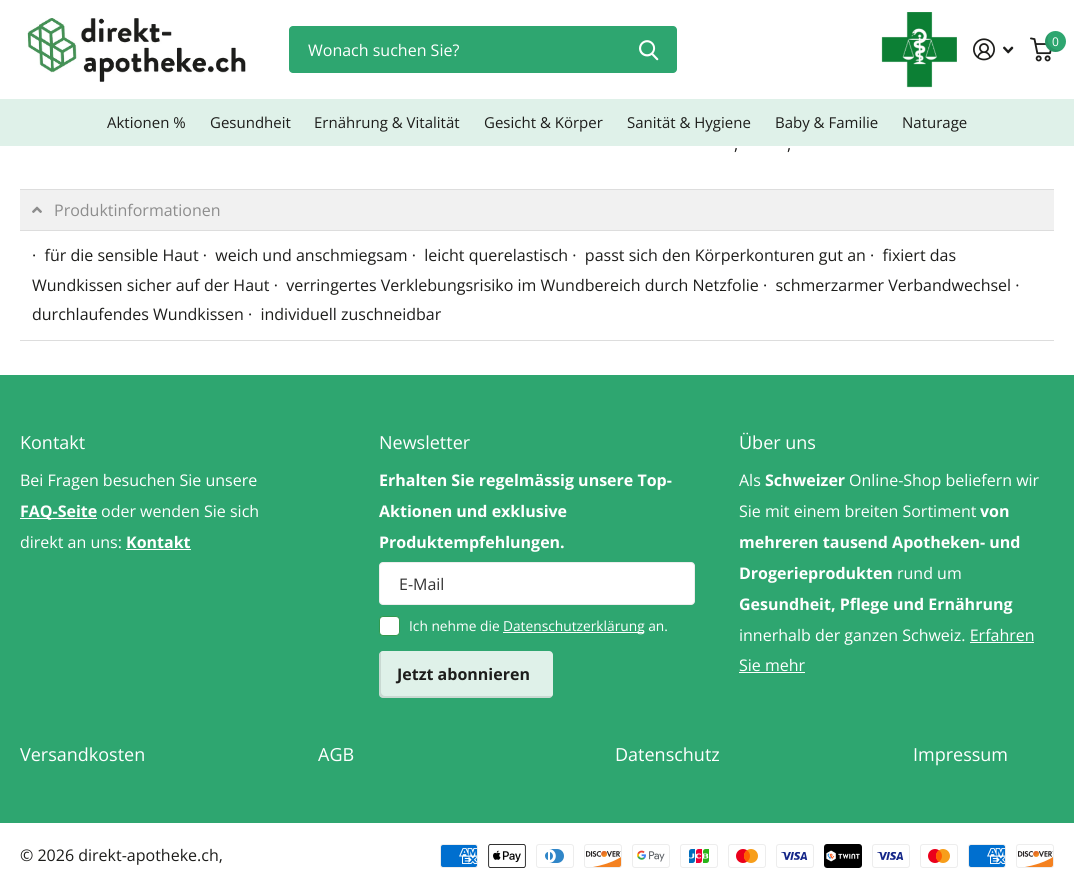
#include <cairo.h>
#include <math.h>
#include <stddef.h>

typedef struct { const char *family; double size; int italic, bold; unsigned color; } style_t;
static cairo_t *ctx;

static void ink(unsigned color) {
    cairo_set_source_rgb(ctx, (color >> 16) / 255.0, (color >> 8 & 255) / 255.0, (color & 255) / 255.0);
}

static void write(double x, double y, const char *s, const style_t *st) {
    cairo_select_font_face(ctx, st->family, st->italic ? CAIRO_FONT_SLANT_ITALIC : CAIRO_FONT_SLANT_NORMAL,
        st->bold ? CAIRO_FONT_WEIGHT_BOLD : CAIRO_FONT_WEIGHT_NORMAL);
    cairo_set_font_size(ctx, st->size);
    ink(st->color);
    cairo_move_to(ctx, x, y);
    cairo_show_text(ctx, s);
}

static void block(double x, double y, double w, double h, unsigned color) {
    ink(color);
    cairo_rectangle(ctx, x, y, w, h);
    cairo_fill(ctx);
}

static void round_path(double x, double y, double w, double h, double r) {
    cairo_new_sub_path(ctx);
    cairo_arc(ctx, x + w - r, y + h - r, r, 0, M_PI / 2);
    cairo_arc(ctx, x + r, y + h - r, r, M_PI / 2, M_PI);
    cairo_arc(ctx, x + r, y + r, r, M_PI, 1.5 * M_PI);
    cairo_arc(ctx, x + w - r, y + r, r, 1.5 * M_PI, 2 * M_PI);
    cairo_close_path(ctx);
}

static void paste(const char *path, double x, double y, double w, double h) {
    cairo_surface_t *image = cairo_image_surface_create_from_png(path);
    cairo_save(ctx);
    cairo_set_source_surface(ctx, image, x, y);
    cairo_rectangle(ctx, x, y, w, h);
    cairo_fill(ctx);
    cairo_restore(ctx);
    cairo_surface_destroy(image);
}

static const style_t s1 = {"Open Sans", 12, 0, 0, 0xffffff};
static const style_t s2 = {"Open Sans", 16, 0, 0, 0xffffff};
static const style_t s3 = {"Open Sans", 15, 0, 0, 0x1d1d1b};
static const style_t s4 = {"Open Sans", 16, 0, 0, 0x1d1d1b};
static const style_t s5 = {"Open Sans", 16, 0, 0, 0x8d8d8d};
static const style_t s6 = {"Open Sans", 18, 0, 0, 0xffffff};
static const style_t s7 = {"Open Sans", 16, 0, 1, 0xffffff};
static const style_t s8 = {"Open Sans", 16, 0, 0, 0x333333};
static const style_t s9 = {"Open Sans", 13.75, 0, 0, 0xffffff};
static const style_t s10 = {"Open Sans", 16, 0, 1, 0x1d1d1b};

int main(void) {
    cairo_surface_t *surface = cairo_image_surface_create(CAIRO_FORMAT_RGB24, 1074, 888);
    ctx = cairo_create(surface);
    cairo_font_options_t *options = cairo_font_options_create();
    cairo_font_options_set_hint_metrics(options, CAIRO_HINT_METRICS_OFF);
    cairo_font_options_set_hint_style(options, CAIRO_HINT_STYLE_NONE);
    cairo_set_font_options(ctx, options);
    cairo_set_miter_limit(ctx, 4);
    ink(0xffffff);
    cairo_paint(ctx);
    paste("pic1.png", 27, 18, 219, 64);
    paste("pic2.png", 881, 12, 76, 76);
    paste("pic3.png", 973, 38, 22, 23);
    paste("pic4.png", 1003, 46, 11, 8);
    paste("pic5.png", 1030, 37, 22, 25);
    ink(0x2ea670);
    cairo_arc(ctx, 1055.5, 41.5, 10.5, 0, 2 * M_PI);
    cairo_fill(ctx);
    cairo_set_source_rgba(ctx, 0, 0, 0, 0.1);
    cairo_new_path(ctx);
    cairo_move_to(ctx, 1063.5, 48.5);
    cairo_curve_to(ctx, 1054, 54.5, 1042.5, 42, 1050, 32.5);
    cairo_curve_to(ctx, 1044.5, 36.5, 1043.5, 44, 1048, 49);
    cairo_curve_to(ctx, 1052.5, 53, 1059.5, 53, 1063.5, 48.5);
    cairo_close_path(ctx);
    cairo_fill(ctx);
    write(1052, 46, "0", &s1);
    ink(0x2ea670);
    round_path(289, 26, 388, 47, 4);
    cairo_fill(ctx);
    write(308, 56, "Wonach suchen Sie?", &s2);
    paste("pic6.png", 639, 40, 20, 21);
    block(0, 99, 1074, 47, 0xdff1e9);
    write(107, 128, "Aktionen %", &s3);
    write(210, 128, "Gesundheit", &s3);
    write(314, 128, "Ernährung & Vitalität", &s3);
    write(484, 128, "Gesicht & Körper", &s3);
    write(627, 128, "Sanität & Hygiene", &s3);
    write(775, 128, "Baby & Familie", &s3);
    write(902, 128, "Naturage", &s3);
    write(734, 150, ",", &s4);
    write(787, 150, ",", &s4);
    block(20, 190, 1034, 40, 0xf1f1f1);
    block(20, 189, 1034, 1, 0xdddddd);
    block(20, 230, 1034, 1, 0xdddddd);
    paste("pic7.png", 32, 206, 10, 7);
    write(54, 216, "Produktinformationen", &s5);
    block(20, 340, 1034, 1, 0xdddddd);
    write(32, 261, "·  für die sensible Haut ·  weich und anschmiegsam ·  leicht querelastisch ·  passt sich den Körperkonturen gut an ·  fixiert das", &s4);
    write(32, 291, "Wundkissen sicher auf der Haut ·  verringertes Verklebungsrisiko im Wundbereich durch Netzfolie ·  schmerzarmer Verbandwechsel ·", &s4);
    write(32, 320, "durchlaufendes Wundkissen ·  individuell zuschneidbar", &s4);
    block(0, 375, 1074, 448, 0x2ea670);
    write(20, 449, "Kontakt", &s6);
    write(20, 486, "Bei Fragen besuchen Sie unsere", &s2);
    block(20, 518, 77, 1, 0xffffff);
    write(20, 517, "FAQ-Seite", &s7);
    write(101, 517, "oder wenden Sie sich", &s2);
    write(20, 548, "direkt an uns:", &s2);
    write(126, 548, "Kontakt", &s7);
    block(126, 549, 65, 1, 0xffffff);
    write(379, 449, "Newsletter", &s6);
    write(379, 486, "Erhalten Sie regelmässig unsere Top-", &s7);
    write(379, 517, "Aktionen und exklusive", &s7);
    write(379, 548, "Produktempfehlungen.", &s7);
    round_path(379, 562, 316, 43, 4);
    cairo_fill(ctx);
    round_path(379.5, 562.5, 315, 42, 3.5);
    cairo_set_source_rgba(ctx, 0.114, 0.114, 0.106, 0.08);
    cairo_set_line_width(ctx, 1);
    cairo_stroke(ctx);
    write(399, 590, "E-Mail", &s8);
    ink(0xffffff);
    round_path(379.5, 616.5, 20, 19, 3.5);
    cairo_fill_preserve(ctx);
    ink(0x32994f);
    cairo_stroke(ctx);
    write(409, 631, "Ich nehme die", &s9);
    block(503, 632, 141, 1, 0xffffff);
    write(503, 631, "Datenschutzerklärung an.", &s9);
    ink(0xdff1e9);
    round_path(379, 651, 174, 47, 4);
    cairo_fill(ctx);
    cairo_set_source_rgba(ctx, 0, 0, 0, 0.1);
    cairo_new_path(ctx);
    cairo_move_to(ctx, 381, 651);
    cairo_curve_to(ctx, 380, 652, 379, 653, 379, 655);
    cairo_line_to(ctx, 379, 694);
    cairo_curve_to(ctx, 379, 696, 381, 698, 383, 698);
    cairo_line_to(ctx, 549, 698);
    cairo_curve_to(ctx, 551, 698, 552, 697, 553, 696);
    cairo_line_to(ctx, 551, 696);
    cairo_line_to(ctx, 385, 696);
    cairo_curve_to(ctx, 383, 696, 381, 694, 381, 692);
    cairo_line_to(ctx, 381, 653);
    cairo_close_path(ctx);
    cairo_fill(ctx);
    write(397, 680, "Jetzt abonnieren", &s10);
    write(739, 449, "Über uns", &s6);
    write(739, 486, "Als", &s2);
    write(765, 486, "Schweizer", &s7);
    write(849, 486, "Online-Shop beliefern wir", &s2);
    write(739, 517, "Sie mit einem breiten Sortiment", &s2);
    write(980, 517, "von", &s7);
    write(739, 548, "mehreren tausend Apotheken- und", &s7);
    write(739, 579, "Drogerieprodukten", &s7);
    write(897, 579, "rund um", &s2);
    write(739, 610, "Gesundheit, Pflege und Ernährung", &s7);
    write(739, 641, "innerhalb der ganzen Schweiz. Erfahren", &s2);
    write(739, 671, "Sie mehr", &s2);
    block(970, 642, 64, 1, 0xffffff);
    block(739, 672, 66, 1, 0xffffff);
    write(20, 761, "Versandkosten", &s6);
    write(318, 761, "AGB", &s6);
    write(615, 761, "Datenschutz", &s6);
    write(913, 761, "Impressum", &s6);
    write(20, 861, "© 2026 direkt-apotheke.ch,", &s4);
    paste("pic8.png", 440, 844, 38, 24);
    paste("pic9.png", 488, 844, 38, 24);
    paste("pic10.png", 536, 844, 38, 24);
    paste("pic11.png", 584, 844, 38, 24);
    paste("pic12.png", 632, 844, 38, 24);
    paste("pic13.png", 680, 844, 38, 24);
    paste("pic14.png", 728, 844, 38, 24);
    paste("pic15.png", 776, 844, 38, 24);
    paste("pic16.png", 824, 844, 38, 24);
    paste("pic15.png", 872, 844, 38, 24);
    paste("pic14.png", 920, 844, 38, 24);
    paste("pic8.png", 968, 844, 38, 24);
    paste("pic11.png", 1016, 844, 38, 24);
    cairo_surface_write_to_png(surface, "screenshot.png");
    cairo_font_options_destroy(options);
    cairo_destroy(ctx);
    cairo_surface_destroy(surface);
    return 0;
}
